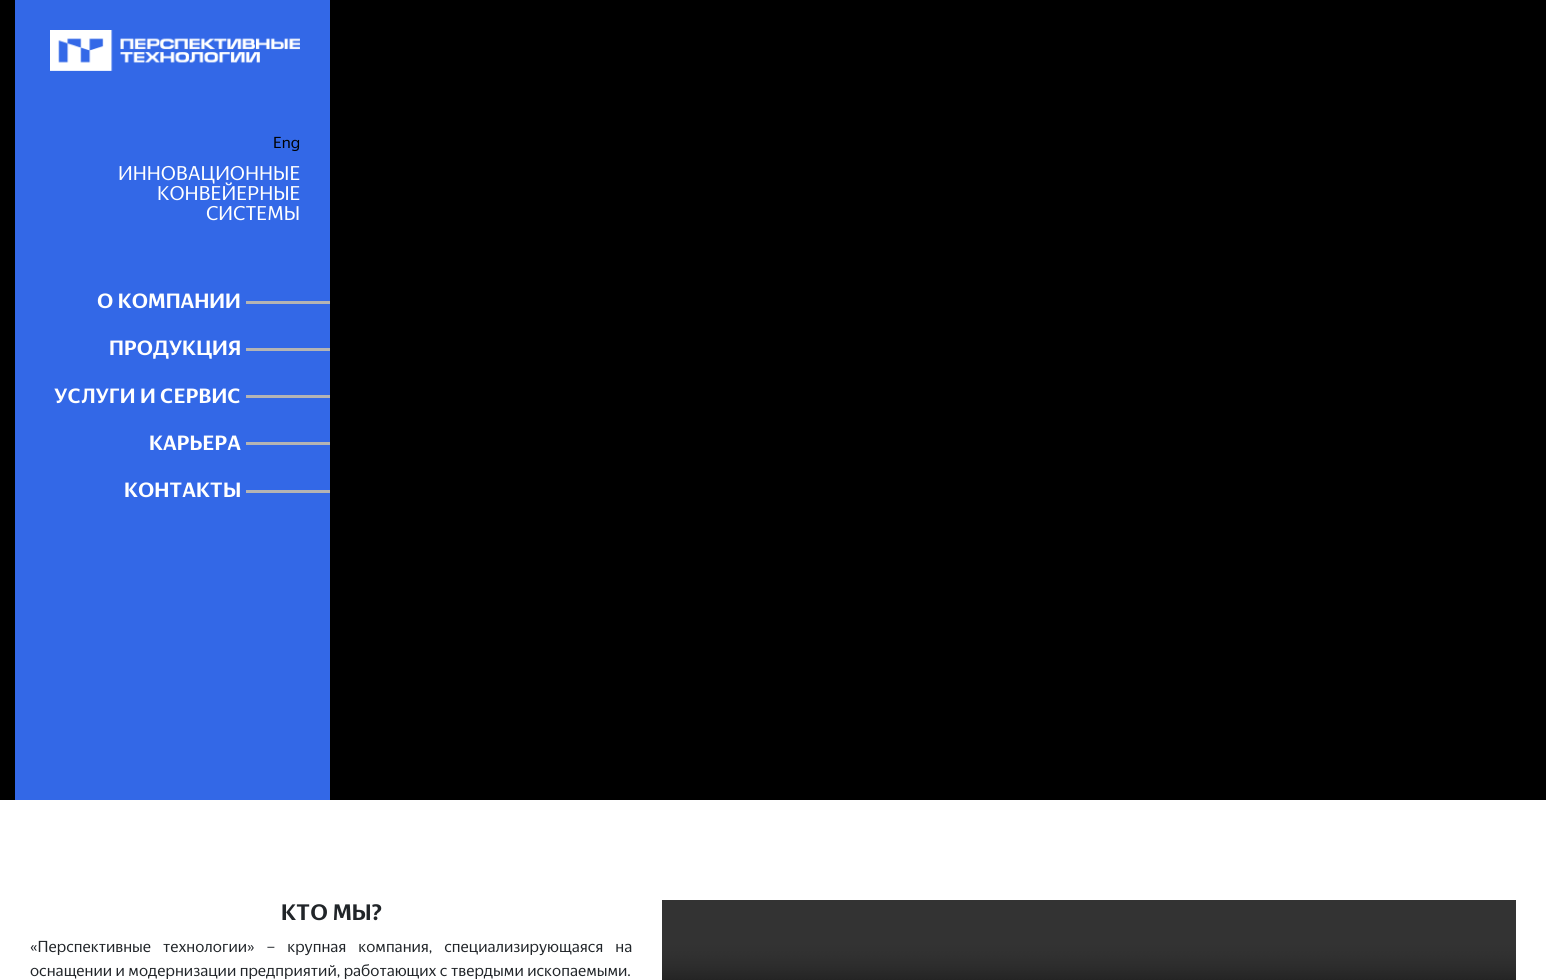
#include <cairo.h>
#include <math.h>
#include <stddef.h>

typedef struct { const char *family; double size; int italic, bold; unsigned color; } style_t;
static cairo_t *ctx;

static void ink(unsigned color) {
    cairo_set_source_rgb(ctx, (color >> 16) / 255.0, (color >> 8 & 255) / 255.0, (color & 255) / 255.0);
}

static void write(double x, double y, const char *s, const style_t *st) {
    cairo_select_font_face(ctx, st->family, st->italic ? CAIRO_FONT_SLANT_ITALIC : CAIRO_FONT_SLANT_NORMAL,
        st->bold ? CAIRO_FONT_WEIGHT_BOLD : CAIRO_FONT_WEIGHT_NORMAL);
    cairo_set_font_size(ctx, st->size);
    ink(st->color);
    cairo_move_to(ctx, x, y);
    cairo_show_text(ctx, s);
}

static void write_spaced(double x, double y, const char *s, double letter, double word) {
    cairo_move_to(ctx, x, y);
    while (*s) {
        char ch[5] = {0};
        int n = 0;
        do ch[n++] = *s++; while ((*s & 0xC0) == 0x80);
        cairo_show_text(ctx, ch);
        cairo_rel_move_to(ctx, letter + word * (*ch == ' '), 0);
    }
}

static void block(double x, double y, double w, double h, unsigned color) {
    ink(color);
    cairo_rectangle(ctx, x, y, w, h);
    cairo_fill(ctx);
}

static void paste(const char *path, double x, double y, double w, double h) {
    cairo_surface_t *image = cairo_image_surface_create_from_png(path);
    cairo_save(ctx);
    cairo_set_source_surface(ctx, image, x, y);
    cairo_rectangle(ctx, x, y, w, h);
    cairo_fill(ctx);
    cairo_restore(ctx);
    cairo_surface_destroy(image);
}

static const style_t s1 = {"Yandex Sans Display", 16, 0, 0, 0x000000};
static const style_t s2 = {"Yandex Sans Display", 20, 0, 0, 0xffffff};
static const style_t s3 = {"Yandex Sans Display", 20.75, 0, 1, 0xffffff};
static const style_t s4 = {"Yandex Sans Display", 22.5, 0, 1, 0x212529};
static const style_t s5 = {"Yandex Sans Display", 16, 0, 0, 0x212529};

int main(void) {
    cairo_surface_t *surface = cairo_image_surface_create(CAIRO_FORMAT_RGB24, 1546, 980);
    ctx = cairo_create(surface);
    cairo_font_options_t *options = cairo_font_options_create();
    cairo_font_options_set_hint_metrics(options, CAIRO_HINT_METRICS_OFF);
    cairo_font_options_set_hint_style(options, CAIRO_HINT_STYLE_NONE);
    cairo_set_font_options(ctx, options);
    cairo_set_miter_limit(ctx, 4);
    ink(0xffffff);
    cairo_paint(ctx);
    block(0, 0, 1546, 800, 0x000000);
    block(15, 0, 315, 800, 0x3368e7);
    paste("pic1.png", 50, 30, 250, 41);
    write(273, 148, "Eng", &s1);
    write(118, 180, "ИННОВАЦИОННЫЕ", &s2);
    write(157, 200, "КОНВЕЙЕРНЫЕ", &s2);
    write(206, 220, "СИСТЕМЫ", &s2);
    write(97, 308, "О КОМПАНИИ", &s3);
    block(246, 301, 84, 3, 0xb4b4b4);
    write(109, 355, "ПРОДУКЦИЯ", &s3);
    block(246, 348, 84, 3, 0xb4b4b4);
    write(54, 403, "УСЛУГИ И СЕРВИС", &s3);
    block(246, 395, 84, 3, 0xb4b4b4);
    write(149, 450, "КАРЬЕРА", &s3);
    block(246, 442, 84, 3, 0xb4b4b4);
    write(124, 497, "КОНТАКТЫ", &s3);
    block(246, 490, 84, 3, 0xb4b4b4);
    write(281, 920, "КТО МЫ?", &s4);
    cairo_select_font_face(ctx, "Yandex Sans Display", CAIRO_FONT_SLANT_NORMAL, CAIRO_FONT_WEIGHT_NORMAL);
    cairo_set_font_size(ctx, 16);
    write_spaced(30, 952, "«Перспективные технологии» – крупная компания, специализирующаяся на", 0, 8.5);
    write(30, 976, "оснащении и модернизации предприятий, работающих с твердыми ископаемыми.", &s5);
    paste("pic2.png", 662, 900, 854, 80);
    cairo_surface_write_to_png(surface, "screenshot.png");
    cairo_font_options_destroy(options);
    cairo_destroy(ctx);
    cairo_surface_destroy(surface);
    return 0;
}
